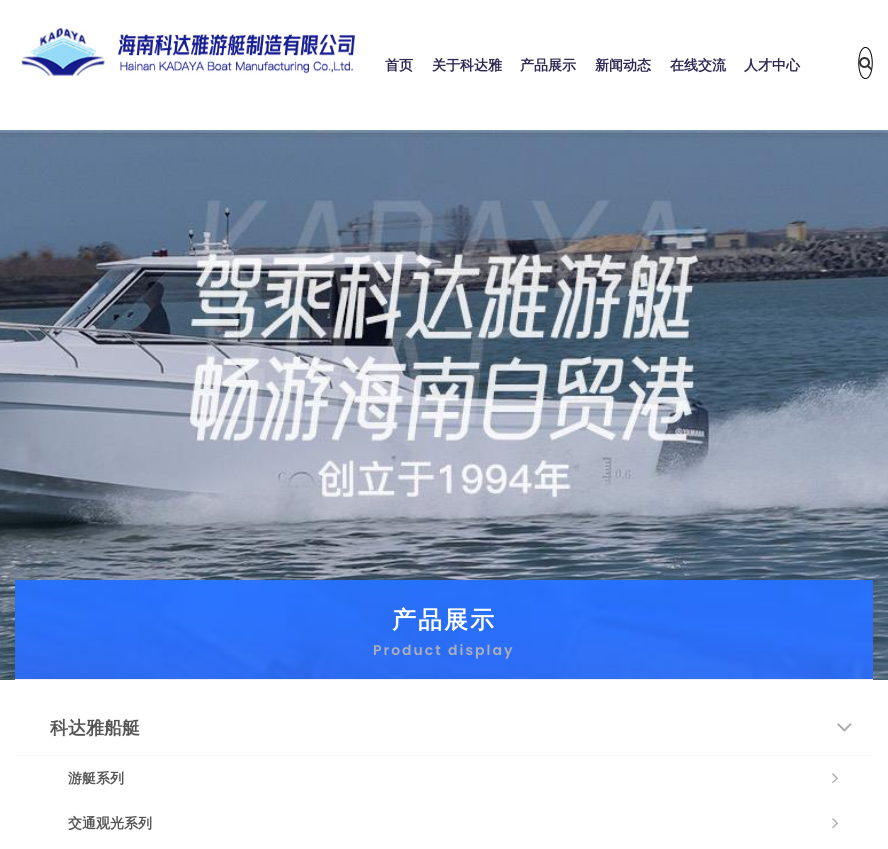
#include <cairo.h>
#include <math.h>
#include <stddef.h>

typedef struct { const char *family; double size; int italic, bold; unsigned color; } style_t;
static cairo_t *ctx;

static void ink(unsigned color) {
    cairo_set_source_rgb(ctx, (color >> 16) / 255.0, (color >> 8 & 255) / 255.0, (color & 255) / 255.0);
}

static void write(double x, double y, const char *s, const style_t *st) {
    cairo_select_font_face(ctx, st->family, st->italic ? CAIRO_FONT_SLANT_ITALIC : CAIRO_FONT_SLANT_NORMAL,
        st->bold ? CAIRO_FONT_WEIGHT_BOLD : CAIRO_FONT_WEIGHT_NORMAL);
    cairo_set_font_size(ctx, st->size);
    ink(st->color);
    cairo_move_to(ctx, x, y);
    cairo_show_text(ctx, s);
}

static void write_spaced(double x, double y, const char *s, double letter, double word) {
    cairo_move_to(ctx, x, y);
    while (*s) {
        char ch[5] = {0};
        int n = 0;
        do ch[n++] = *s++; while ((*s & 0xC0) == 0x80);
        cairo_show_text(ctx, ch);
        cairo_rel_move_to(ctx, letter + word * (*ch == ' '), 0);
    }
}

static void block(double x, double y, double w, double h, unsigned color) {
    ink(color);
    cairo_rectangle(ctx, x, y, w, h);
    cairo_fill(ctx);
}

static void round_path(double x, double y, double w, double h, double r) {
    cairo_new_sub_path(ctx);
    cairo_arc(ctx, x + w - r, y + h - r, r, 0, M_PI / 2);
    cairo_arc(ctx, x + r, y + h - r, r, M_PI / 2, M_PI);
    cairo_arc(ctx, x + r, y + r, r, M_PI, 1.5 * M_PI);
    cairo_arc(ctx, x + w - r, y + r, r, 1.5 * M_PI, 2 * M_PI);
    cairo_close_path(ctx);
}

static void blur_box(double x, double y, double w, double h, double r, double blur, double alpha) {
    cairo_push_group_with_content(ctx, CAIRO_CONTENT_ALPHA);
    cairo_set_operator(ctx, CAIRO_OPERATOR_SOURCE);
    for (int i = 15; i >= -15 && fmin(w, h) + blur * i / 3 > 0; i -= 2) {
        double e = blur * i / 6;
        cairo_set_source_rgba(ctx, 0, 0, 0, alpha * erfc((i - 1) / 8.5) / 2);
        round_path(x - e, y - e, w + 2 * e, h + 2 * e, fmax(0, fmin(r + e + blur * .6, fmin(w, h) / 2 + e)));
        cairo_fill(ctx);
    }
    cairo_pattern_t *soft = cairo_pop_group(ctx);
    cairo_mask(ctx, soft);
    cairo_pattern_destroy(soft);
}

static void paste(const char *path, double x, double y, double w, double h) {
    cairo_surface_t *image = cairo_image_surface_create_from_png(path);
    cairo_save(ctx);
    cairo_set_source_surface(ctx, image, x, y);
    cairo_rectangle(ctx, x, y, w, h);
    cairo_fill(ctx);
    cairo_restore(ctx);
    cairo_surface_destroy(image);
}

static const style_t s1 = {"WenQuanYi Zen Hei", 14, 0, 1, 0x2e2751};
static const style_t s2 = {"WenQuanYi Zen Hei", 18, 0, 1, 0x555555};
static const style_t s3 = {"WenQuanYi Zen Hei", 14, 0, 1, 0x555555};

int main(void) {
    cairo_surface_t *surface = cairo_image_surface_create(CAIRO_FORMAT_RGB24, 888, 849);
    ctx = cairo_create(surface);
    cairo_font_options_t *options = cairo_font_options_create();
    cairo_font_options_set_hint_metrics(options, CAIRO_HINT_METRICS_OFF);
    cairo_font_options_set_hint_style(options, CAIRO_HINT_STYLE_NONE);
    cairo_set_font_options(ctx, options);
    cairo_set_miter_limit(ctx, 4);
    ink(0xffffff);
    cairo_paint(ctx);
    paste("pic3.png", 0, 130, 888, 550);
    cairo_save(ctx);
    cairo_rectangle(ctx, 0, 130, 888, 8);
    cairo_clip(ctx);
    ink(0x000000);
    blur_box(0, 3, 888, 130, 0, 6, 0.1);
    cairo_restore(ctx);
    paste("pic1.png", 20, 27, 335, 50);
    write(385, 70, "首页", &s1);
    write(432, 70, "关于科达雅", &s1);
    write(520, 70, "产品展示", &s1);
    write(595, 70, "新闻动态", &s1);
    write(670, 70, "在线交流", &s1);
    write(744, 70, "人才中心", &s1);
    cairo_new_path(ctx);
    cairo_move_to(ctx, 865.5, 47.5);
    cairo_curve_to(ctx, 874.5, 47.5, 874.5, 78.5, 865.5, 78.5);
    cairo_curve_to(ctx, 856.5, 78.5, 856.5, 47.5, 865.5, 47.5);
    cairo_close_path(ctx);
    ink(0x000000);
    cairo_set_line_width(ctx, 1);
    cairo_stroke(ctx);
    paste("pic2.png", 859, 57, 13, 13);
    paste("pic4.png", 15, 580, 858, 99);
    block(15, 679, 858, 1, 0xefefef);
    cairo_set_font_size(ctx, 24);
    ink(0xffffff);
    write_spaced(392, 628, "产品展示", 2, 0);
    cairo_select_font_face(ctx, "Poppins SemiBold", CAIRO_FONT_SLANT_NORMAL, CAIRO_FONT_WEIGHT_NORMAL);
    cairo_set_font_size(ctx, 14);
    ink(0xabaebb);
    write_spaced(373, 655, "Product display", 2, 0);
    block(15, 755, 858, 1, 0xf6f6f6);
    write(50, 734, "科达雅船艇", &s2);
    paste("pic5.png", 837, 723, 15, 9);
    write(68, 783, "游艇系列", &s3);
    paste("pic6.png", 832, 773, 6, 11);
    write(68, 828, "交通观光系列", &s3);
    paste("pic6.png", 832, 818, 6, 11);
    cairo_surface_write_to_png(surface, "screenshot.png");
    cairo_font_options_destroy(options);
    cairo_destroy(ctx);
    cairo_surface_destroy(surface);
    return 0;
}
